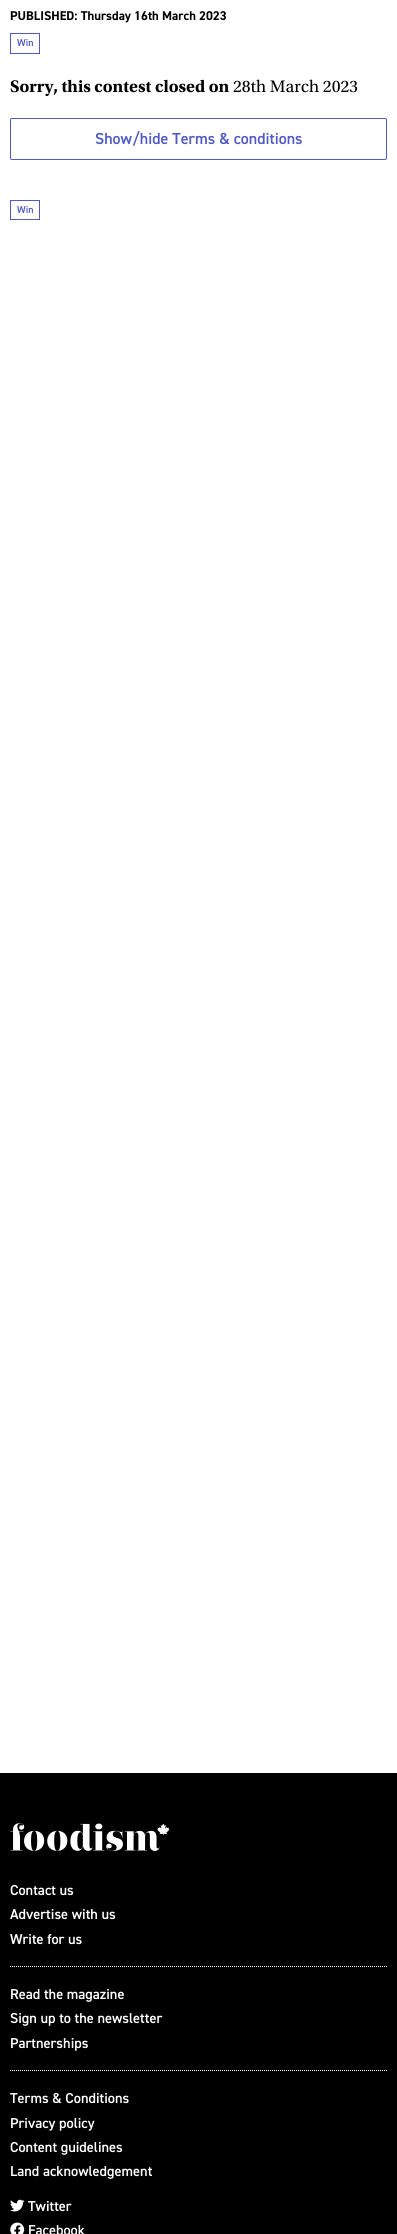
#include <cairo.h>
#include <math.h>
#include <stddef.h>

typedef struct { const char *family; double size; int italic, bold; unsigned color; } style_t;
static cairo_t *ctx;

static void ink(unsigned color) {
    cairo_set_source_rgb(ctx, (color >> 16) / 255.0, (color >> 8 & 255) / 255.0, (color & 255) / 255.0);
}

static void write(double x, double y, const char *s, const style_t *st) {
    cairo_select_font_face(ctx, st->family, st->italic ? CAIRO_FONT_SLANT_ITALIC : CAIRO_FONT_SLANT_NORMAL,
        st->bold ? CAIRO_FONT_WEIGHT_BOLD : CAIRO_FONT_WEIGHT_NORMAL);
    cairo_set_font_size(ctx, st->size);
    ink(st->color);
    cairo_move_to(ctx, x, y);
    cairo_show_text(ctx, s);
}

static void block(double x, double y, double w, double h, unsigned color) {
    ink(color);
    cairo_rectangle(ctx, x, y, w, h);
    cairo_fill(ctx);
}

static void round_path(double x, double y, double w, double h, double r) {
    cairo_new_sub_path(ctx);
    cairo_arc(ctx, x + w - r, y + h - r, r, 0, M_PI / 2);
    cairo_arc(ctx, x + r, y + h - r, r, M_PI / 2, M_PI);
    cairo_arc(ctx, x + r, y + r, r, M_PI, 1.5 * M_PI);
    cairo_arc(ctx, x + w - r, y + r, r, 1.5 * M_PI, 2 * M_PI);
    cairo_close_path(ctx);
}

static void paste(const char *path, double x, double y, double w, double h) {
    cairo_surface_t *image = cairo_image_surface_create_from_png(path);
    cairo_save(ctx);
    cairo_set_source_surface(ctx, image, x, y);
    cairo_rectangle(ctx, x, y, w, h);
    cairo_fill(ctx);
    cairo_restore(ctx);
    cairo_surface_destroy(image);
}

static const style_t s1 = {"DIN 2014", 12.75, 0, 1, 0x000000};
static const style_t s2 = {"DIN 2014 SemiBold", 10, 0, 0, 0x4f5ac3};
static const style_t s3 = {"Utopia", 17.6, 0, 1, 0x000000};
static const style_t s4 = {"Utopia", 17.6, 0, 0, 0x000000};
static const style_t s5 = {"DIN 2014 SemiBold", 16, 0, 0, 0x4f5ac3};
static const style_t s6 = {"DIN 2014 SemiBold", 14.4, 0, 0, 0xffffff};

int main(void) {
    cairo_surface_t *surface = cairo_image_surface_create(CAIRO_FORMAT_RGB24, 397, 2234);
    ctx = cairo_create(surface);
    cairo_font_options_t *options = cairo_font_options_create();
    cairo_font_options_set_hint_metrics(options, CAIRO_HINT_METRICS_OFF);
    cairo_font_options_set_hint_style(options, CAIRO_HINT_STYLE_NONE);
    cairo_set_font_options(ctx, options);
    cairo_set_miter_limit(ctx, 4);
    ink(0xffffff);
    cairo_paint(ctx);
    write(10, 20, "PUBLISHED: Thursday 16th March 2023", &s1);
    cairo_rectangle(ctx, 10.5, 33.5, 29, 20);
    ink(0x4f5ac3);
    cairo_set_line_width(ctx, 1);
    cairo_stroke(ctx);
    write(17, 46, "Win", &s2);
    write(10, 92, "Sorry, this contest closed on", &s3);
    write(233, 92, "28th March 2023", &s4);
    round_path(10.5, 118.5, 376, 41, 1.5);
    ink(0x4f5ac3);
    cairo_stroke(ctx);
    write(95, 144, "Show/hide Terms & conditions", &s5);
    cairo_rectangle(ctx, 10.5, 200.5, 29, 19);
    cairo_stroke(ctx);
    write(17, 213, "Win", &s2);
    block(0, 1773, 397, 461, 0x000000);
    paste("pic1.png", 10, 1823, 160, 28);
    write(10, 1895, "Contact us", &s6);
    write(10, 1919, "Advertise with us", &s6);
    write(10, 1944, "Write for us", &s6);
    cairo_new_path(ctx);
    cairo_move_to(ctx, 10, 1966.5);
    cairo_line_to(ctx, 387, 1966.5);
    cairo_set_dash(ctx, (double[]){1, 1}, 2, 0);
    cairo_stroke(ctx);
    write(10, 1999, "Read the magazine", &s6);
    write(10, 2023, "Sign up to the newsletter", &s6);
    write(10, 2048, "Partnerships", &s6);
    cairo_new_path(ctx);
    cairo_move_to(ctx, 10, 2070.5);
    cairo_line_to(ctx, 387, 2070.5);
    cairo_stroke(ctx);
    write(10, 2103, "Terms & Conditions", &s6);
    write(10, 2128, "Privacy policy", &s6);
    write(10, 2152, "Content guidelines", &s6);
    write(10, 2176, "Land acknowledgement", &s6);
    paste("pic2.png", 10, 2199, 15, 13);
    write(28, 2211, "Twitter", &s6);
    paste("pic3.png", 10, 2222, 15, 12);
    write(28, 2235, "Facebook", &s6);
    cairo_surface_write_to_png(surface, "screenshot.png");
    cairo_font_options_destroy(options);
    cairo_destroy(ctx);
    cairo_surface_destroy(surface);
    return 0;
}
